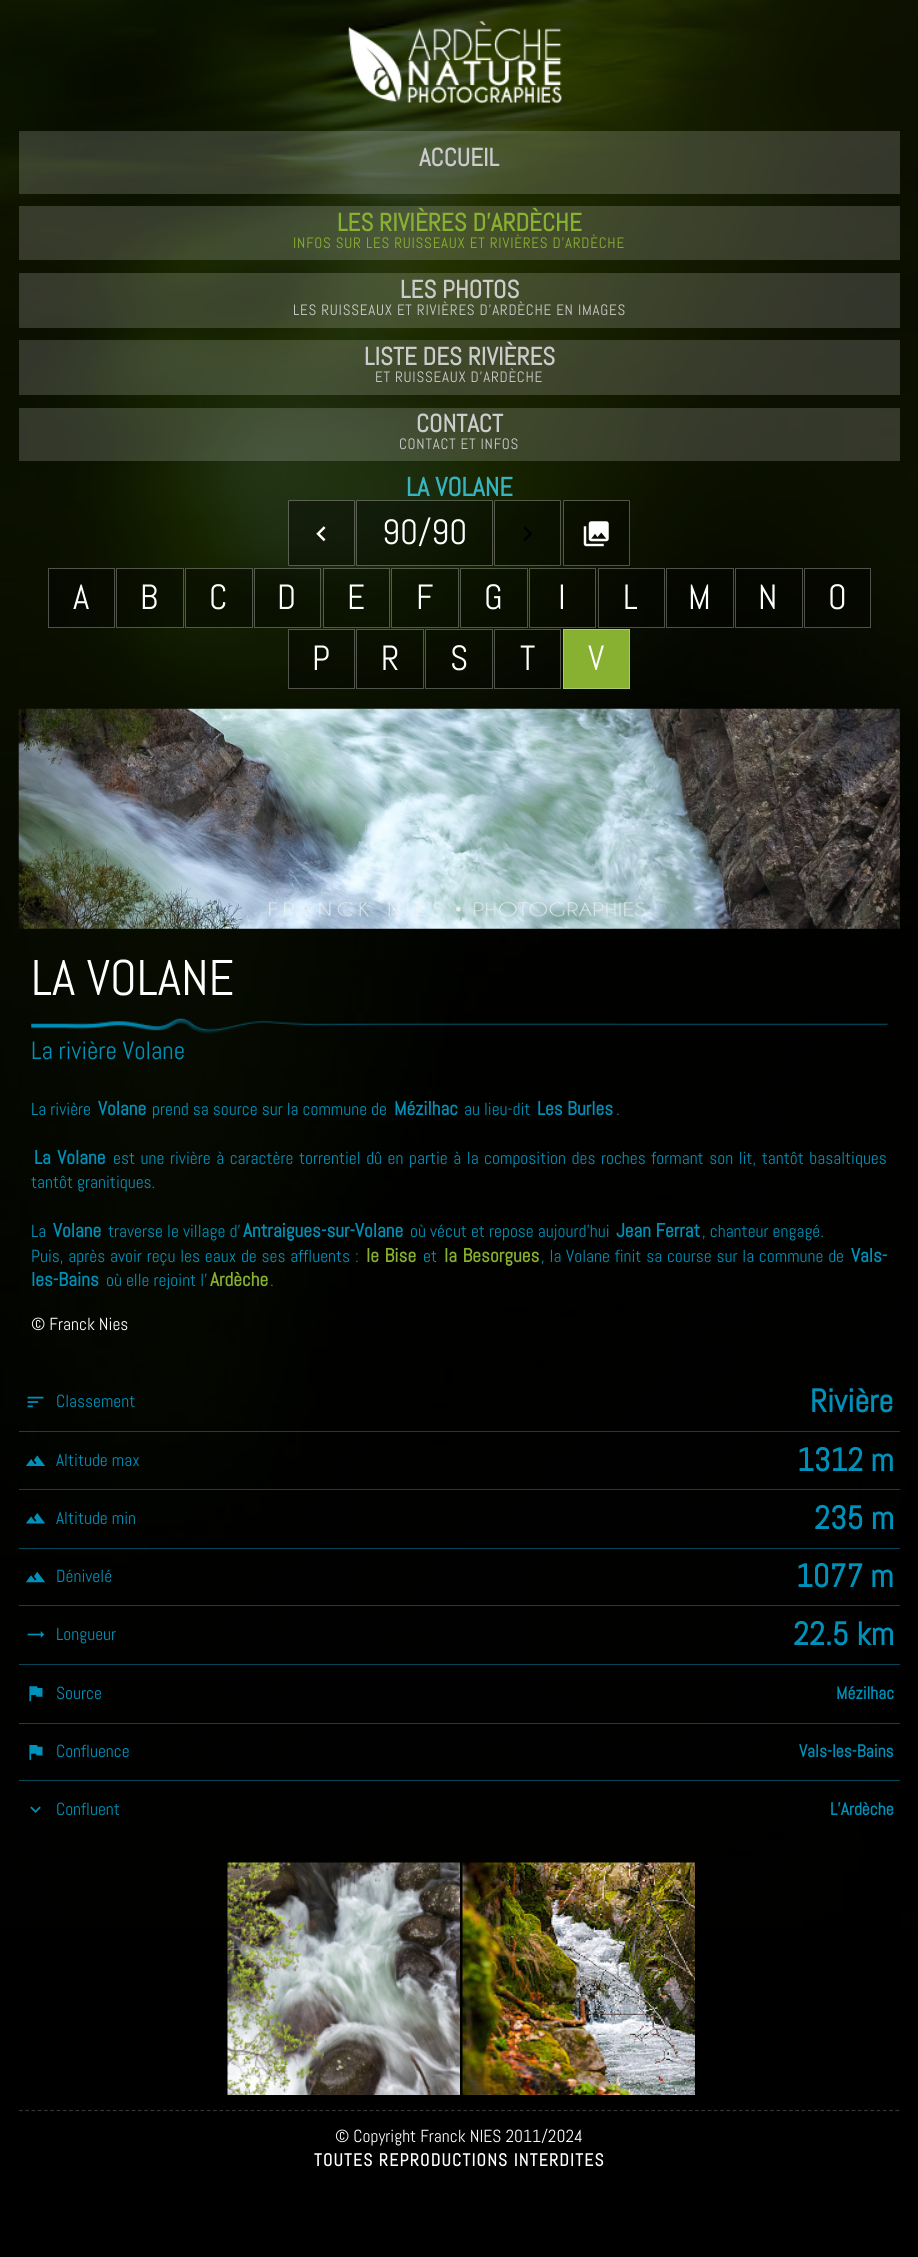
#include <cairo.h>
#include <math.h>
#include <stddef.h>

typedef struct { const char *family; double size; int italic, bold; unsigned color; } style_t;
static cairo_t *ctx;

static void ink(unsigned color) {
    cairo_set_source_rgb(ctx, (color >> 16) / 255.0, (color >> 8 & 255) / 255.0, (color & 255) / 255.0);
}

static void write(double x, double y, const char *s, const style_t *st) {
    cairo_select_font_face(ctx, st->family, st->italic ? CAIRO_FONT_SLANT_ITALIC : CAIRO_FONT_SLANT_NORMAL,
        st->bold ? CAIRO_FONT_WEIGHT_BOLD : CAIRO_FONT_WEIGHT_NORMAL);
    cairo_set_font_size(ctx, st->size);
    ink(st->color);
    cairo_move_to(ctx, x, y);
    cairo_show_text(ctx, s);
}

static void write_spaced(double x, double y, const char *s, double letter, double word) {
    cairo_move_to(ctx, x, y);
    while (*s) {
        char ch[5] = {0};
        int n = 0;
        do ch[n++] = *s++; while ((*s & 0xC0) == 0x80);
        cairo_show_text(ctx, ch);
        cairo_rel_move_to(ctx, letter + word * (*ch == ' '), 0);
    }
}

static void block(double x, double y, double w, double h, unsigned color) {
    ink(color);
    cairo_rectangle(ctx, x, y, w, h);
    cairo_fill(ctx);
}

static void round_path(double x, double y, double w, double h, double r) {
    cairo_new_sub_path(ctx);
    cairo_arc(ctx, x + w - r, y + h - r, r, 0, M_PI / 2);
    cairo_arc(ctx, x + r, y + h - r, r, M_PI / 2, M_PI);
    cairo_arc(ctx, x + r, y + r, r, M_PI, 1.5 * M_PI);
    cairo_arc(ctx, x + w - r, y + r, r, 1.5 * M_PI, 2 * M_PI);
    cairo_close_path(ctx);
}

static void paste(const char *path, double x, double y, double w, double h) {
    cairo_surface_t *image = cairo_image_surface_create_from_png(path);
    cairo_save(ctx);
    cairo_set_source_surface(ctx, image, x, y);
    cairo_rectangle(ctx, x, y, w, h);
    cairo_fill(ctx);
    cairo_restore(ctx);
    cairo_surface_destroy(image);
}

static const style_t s1 = {"Abel", 25, 0, 1, 0xcccccc};
static const style_t s2 = {"Abel", 25, 0, 1, 0x89b131};
static const style_t s3 = {"Abel", 26.25, 0, 1, 0x36b5c1};
static const style_t s4 = {"Abel", 35, 0, 0, 0xffffff};
static const style_t s5 = {"Abel", 50, 0, 0, 0xffffff};
static const style_t s6 = {"Abel", 25, 0, 0, 0x0091ba};
static const style_t s7 = {"Abel", 17.5, 0, 0, 0x0091ba};
static const style_t s8 = {"Abel", 19.25, 0, 1, 0x0091ba};
static const style_t s9 = {"Abel", 19.25, 0, 1, 0x89b131};
static const style_t s10 = {"Abel", 17.5, 0, 0, 0xffffff};
static const style_t s11 = {"Abel", 32.5, 0, 1, 0x0091ba};
static const style_t s12 = {"Abel", 17.5, 0, 1, 0x0091ba};

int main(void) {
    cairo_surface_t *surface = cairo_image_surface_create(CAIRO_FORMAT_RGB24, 918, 2257);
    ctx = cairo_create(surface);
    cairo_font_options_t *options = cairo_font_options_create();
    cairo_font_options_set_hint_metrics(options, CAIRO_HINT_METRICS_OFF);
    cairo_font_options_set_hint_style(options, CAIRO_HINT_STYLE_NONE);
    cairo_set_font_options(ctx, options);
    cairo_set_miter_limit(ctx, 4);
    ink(0x000000);
    cairo_paint(ctx);
    paste("pic1.png", 0, 0, 918, 1929);
    paste("pic2.png", 348, 21, 214, 83);
    cairo_set_source_rgba(ctx, 1, 1, 1, 0.17);
    cairo_rectangle(ctx, 19, 131, 881, 63);
    cairo_fill(ctx);
    write(419, 166, "ACCUEIL", &s1);
    cairo_set_source_rgba(ctx, 1, 1, 1, 0.17);
    cairo_rectangle(ctx, 19, 206, 881, 54);
    cairo_fill(ctx);
    write(337, 231, "LES RIVIÈRES D'ARDÈCHE", &s2);
    cairo_select_font_face(ctx, "Abel", CAIRO_FONT_SLANT_NORMAL, CAIRO_FONT_WEIGHT_NORMAL);
    cairo_set_font_size(ctx, 15);
    write_spaced(293, 248, "INFOS SUR LES RUISSEAUX ET RIVIÈRES D'ARDÈCHE", 0.75, 0);
    cairo_set_source_rgba(ctx, 1, 1, 1, 0.17);
    cairo_rectangle(ctx, 19, 273, 881, 55);
    cairo_fill(ctx);
    write(400, 298, "LES PHOTOS", &s1);
    cairo_select_font_face(ctx, "Abel", CAIRO_FONT_SLANT_NORMAL, CAIRO_FONT_WEIGHT_NORMAL);
    cairo_set_font_size(ctx, 15);
    write_spaced(293, 315, "LES RUISSEAUX ET RIVIÈRES D'ARDÈCHE EN IMAGES", 0.75, 0);
    cairo_set_source_rgba(ctx, 1, 1, 1, 0.17);
    cairo_rectangle(ctx, 19, 340, 881, 55);
    cairo_fill(ctx);
    write(364, 365, "LISTE DES RIVIÈRES", &s1);
    cairo_select_font_face(ctx, "Abel", CAIRO_FONT_SLANT_NORMAL, CAIRO_FONT_WEIGHT_NORMAL);
    cairo_set_font_size(ctx, 15);
    write_spaced(375, 382, "ET RUISSEAUX D'ARDÈCHE", 0.75, 0);
    cairo_set_source_rgba(ctx, 1, 1, 1, 0.17);
    cairo_rectangle(ctx, 19, 408, 881, 53);
    cairo_fill(ctx);
    write(416, 432, "CONTACT", &s1);
    cairo_select_font_face(ctx, "Abel", CAIRO_FONT_SLANT_NORMAL, CAIRO_FONT_WEIGHT_NORMAL);
    cairo_set_font_size(ctx, 15);
    write_spaced(399, 449, "CONTACT ET INFOS", 0.75, 0);
    write(406, 496, "LA VOLANE", &s3);
    cairo_set_source_rgba(ctx, 0, 0, 0, 0.4);
    round_path(288, 500, 67, 66, 1);
    cairo_fill(ctx);
    round_path(288.5, 500.5, 66, 65, 0.5);
    cairo_set_source_rgba(ctx, 1, 1, 1, 0.3);
    cairo_set_line_width(ctx, 1);
    cairo_stroke(ctx);
    paste("pic3.png", 316, 526, 10, 16);
    cairo_set_source_rgba(ctx, 0, 0, 0, 0.4);
    cairo_rectangle(ctx, 356, 500, 137, 66);
    cairo_fill(ctx);
    cairo_rectangle(ctx, 356.5, 500.5, 136, 65);
    cairo_set_source_rgba(ctx, 1, 1, 1, 0.3);
    cairo_stroke(ctx);
    write(382, 544, "90/90", &s4);
    cairo_set_source_rgba(ctx, 0, 0, 0, 0.4);
    round_path(494, 500, 67, 66, 1);
    cairo_fill(ctx);
    round_path(494.5, 500.5, 66, 65, 0.5);
    cairo_set_source_rgba(ctx, 1, 1, 1, 0.3);
    cairo_stroke(ctx);
    paste("pic4.png", 523, 526, 9, 15);
    cairo_set_source_rgba(ctx, 0, 0, 0, 0.4);
    round_path(563, 500, 67, 66, 1);
    cairo_fill(ctx);
    round_path(563.5, 500.5, 66, 65, 0.5);
    cairo_set_source_rgba(ctx, 1, 1, 1, 0.3);
    cairo_stroke(ctx);
    paste("pic5.png", 583, 521, 26, 26);
    cairo_set_source_rgba(ctx, 0, 0, 0, 0.4);
    cairo_rectangle(ctx, 48, 568, 67, 60);
    cairo_fill(ctx);
    cairo_rectangle(ctx, 48.5, 568.5, 66, 59);
    cairo_set_source_rgba(ctx, 1, 1, 1, 0.3);
    cairo_stroke(ctx);
    write(73, 609, "A", &s4);
    cairo_set_source_rgba(ctx, 0, 0, 0, 0.4);
    cairo_rectangle(ctx, 116, 568, 68, 60);
    cairo_fill(ctx);
    cairo_rectangle(ctx, 116.5, 568.5, 67, 59);
    cairo_set_source_rgba(ctx, 1, 1, 1, 0.3);
    cairo_stroke(ctx);
    write(140, 609, "B", &s4);
    cairo_set_source_rgba(ctx, 0, 0, 0, 0.4);
    cairo_rectangle(ctx, 185, 568, 68, 60);
    cairo_fill(ctx);
    cairo_rectangle(ctx, 185.5, 568.5, 67, 59);
    cairo_set_source_rgba(ctx, 1, 1, 1, 0.3);
    cairo_stroke(ctx);
    write(209, 609, "C", &s4);
    cairo_set_source_rgba(ctx, 0, 0, 0, 0.4);
    cairo_rectangle(ctx, 254, 568, 67, 60);
    cairo_fill(ctx);
    cairo_rectangle(ctx, 254.5, 568.5, 66, 59);
    cairo_set_source_rgba(ctx, 1, 1, 1, 0.3);
    cairo_stroke(ctx);
    write(277, 609, "D", &s4);
    cairo_set_source_rgba(ctx, 0, 0, 0, 0.4);
    cairo_rectangle(ctx, 323, 568, 67, 60);
    cairo_fill(ctx);
    cairo_rectangle(ctx, 323.5, 568.5, 66, 59);
    cairo_set_source_rgba(ctx, 1, 1, 1, 0.3);
    cairo_stroke(ctx);
    write(347, 609, "E", &s4);
    cairo_set_source_rgba(ctx, 0, 0, 0, 0.4);
    cairo_rectangle(ctx, 391, 568, 68, 60);
    cairo_fill(ctx);
    cairo_rectangle(ctx, 391.5, 568.5, 67, 59);
    cairo_set_source_rgba(ctx, 1, 1, 1, 0.3);
    cairo_stroke(ctx);
    write(416, 609, "F", &s4);
    cairo_set_source_rgba(ctx, 0, 0, 0, 0.4);
    cairo_rectangle(ctx, 460, 568, 68, 60);
    cairo_fill(ctx);
    cairo_rectangle(ctx, 460.5, 568.5, 67, 59);
    cairo_set_source_rgba(ctx, 1, 1, 1, 0.3);
    cairo_stroke(ctx);
    write(484, 609, "G", &s4);
    cairo_set_source_rgba(ctx, 0, 0, 0, 0.4);
    cairo_rectangle(ctx, 529, 568, 67, 60);
    cairo_fill(ctx);
    cairo_rectangle(ctx, 529.5, 568.5, 66, 59);
    cairo_set_source_rgba(ctx, 1, 1, 1, 0.3);
    cairo_stroke(ctx);
    write(558, 609, "I", &s4);
    cairo_set_source_rgba(ctx, 0, 0, 0, 0.4);
    cairo_rectangle(ctx, 598, 568, 67, 60);
    cairo_fill(ctx);
    cairo_rectangle(ctx, 598.5, 568.5, 66, 59);
    cairo_set_source_rgba(ctx, 1, 1, 1, 0.3);
    cairo_stroke(ctx);
    write(623, 609, "L", &s4);
    cairo_set_source_rgba(ctx, 0, 0, 0, 0.4);
    cairo_rectangle(ctx, 666, 568, 68, 60);
    cairo_fill(ctx);
    cairo_rectangle(ctx, 666.5, 568.5, 67, 59);
    cairo_set_source_rgba(ctx, 1, 1, 1, 0.3);
    cairo_stroke(ctx);
    write(688, 609, "M", &s4);
    cairo_set_source_rgba(ctx, 0, 0, 0, 0.4);
    cairo_rectangle(ctx, 735.5, 568.5, 67, 59);
    cairo_fill_preserve(ctx);
    ink(0x4f514d);
    cairo_stroke(ctx);
    write(758, 609, "N", &s4);
    cairo_set_source_rgba(ctx, 0, 0, 0, 0.4);
    cairo_rectangle(ctx, 804, 568, 67, 60);
    cairo_fill(ctx);
    cairo_rectangle(ctx, 804.5, 568.5, 66, 59);
    cairo_set_source_rgba(ctx, 1, 1, 1, 0.3);
    cairo_stroke(ctx);
    write(828, 609, "O", &s4);
    cairo_set_source_rgba(ctx, 0, 0, 0, 0.4);
    cairo_rectangle(ctx, 288, 629, 67, 60);
    cairo_fill(ctx);
    cairo_rectangle(ctx, 288.5, 629.5, 66, 59);
    cairo_set_source_rgba(ctx, 1, 1, 1, 0.3);
    cairo_stroke(ctx);
    write(312, 670, "P", &s4);
    cairo_set_source_rgba(ctx, 0, 0, 0, 0.4);
    cairo_rectangle(ctx, 356, 629, 68, 60);
    cairo_fill(ctx);
    cairo_rectangle(ctx, 356.5, 629.5, 67, 59);
    cairo_set_source_rgba(ctx, 1, 1, 1, 0.3);
    cairo_stroke(ctx);
    write(381, 670, "R", &s4);
    cairo_set_source_rgba(ctx, 0, 0, 0, 0.4);
    cairo_rectangle(ctx, 425, 629, 68, 60);
    cairo_fill(ctx);
    cairo_rectangle(ctx, 425.5, 629.5, 67, 59);
    cairo_set_source_rgba(ctx, 1, 1, 1, 0.3);
    cairo_stroke(ctx);
    write(450, 670, "S", &s4);
    cairo_set_source_rgba(ctx, 0, 0, 0, 0.4);
    cairo_rectangle(ctx, 494, 629, 67, 60);
    cairo_fill(ctx);
    cairo_rectangle(ctx, 494.5, 629.5, 66, 59);
    cairo_set_source_rgba(ctx, 1, 1, 1, 0.3);
    cairo_stroke(ctx);
    write(520, 670, "T", &s4);
    ink(0x89b131);
    cairo_rectangle(ctx, 563.5, 629.5, 66, 59);
    cairo_fill_preserve(ctx);
    ink(0xacc86f);
    cairo_stroke(ctx);
    write(588, 670, "V", &s4);
    paste("pic6.png", 18, 708, 882, 221);
    write(31, 995, "LA VOLANE", &s5);
    paste("pic7.png", 31, 1018, 857, 16);
    write(31, 1059, "La rivière Volane", &s6);
    write(31, 1115, "La rivière", &s7);
    write(98, 1115, "Volane", &s8);
    write(152, 1115, "prend sa source sur la commune de", &s7);
    write(394, 1115, "Mézilhac", &s8);
    write(464, 1115, "au lieu-dit", &s7);
    write(537, 1115, "Les Burles", &s8);
    write(616, 1115, ".", &s7);
    cairo_select_font_face(ctx, "Abel", CAIRO_FONT_SLANT_NORMAL, CAIRO_FONT_WEIGHT_BOLD);
    cairo_set_font_size(ctx, 19.25);
    write_spaced(34, 1164, "La Volane", 0, 2);
    cairo_select_font_face(ctx, "Abel", CAIRO_FONT_SLANT_NORMAL, CAIRO_FONT_WEIGHT_NORMAL);
    cairo_set_font_size(ctx, 17.5);
    write_spaced(113, 1164, "est une rivière à caractère torrentiel dû en partie à la composition des roches formant son lit, tantôt basaltiques", 0, 1.5);
    write(31, 1188, "tantôt granitiques.", &s7);
    write(31, 1237, "La", &s7);
    write(53, 1237, "Volane", &s8);
    write(108, 1237, "traverse le village d'", &s7);
    write(243, 1237, "Antraigues-sur-Volane", &s8);
    write(410, 1237, "où vécut et repose aujourd'hui", &s7);
    write(616, 1237, "Jean Ferrat", &s8);
    write(702, 1237, ", chanteur engagé.", &s7);
    write_spaced(31, 1262, "Puis, après avoir reçu les eaux de ses affluents :", 0, 0.75);
    cairo_select_font_face(ctx, "Abel", CAIRO_FONT_SLANT_NORMAL, CAIRO_FONT_WEIGHT_BOLD);
    cairo_set_font_size(ctx, 19.25);
    ink(0x89b131);
    write_spaced(366, 1262, "le Bise", 0, 1);
    write(423, 1262, "et", &s7);
    cairo_select_font_face(ctx, "Abel", CAIRO_FONT_SLANT_NORMAL, CAIRO_FONT_WEIGHT_BOLD);
    cairo_set_font_size(ctx, 19.25);
    ink(0x89b131);
    write_spaced(444, 1262, "la Besorgues", 0, 1);
    cairo_select_font_face(ctx, "Abel", CAIRO_FONT_SLANT_NORMAL, CAIRO_FONT_WEIGHT_NORMAL);
    cairo_set_font_size(ctx, 17.5);
    ink(0x0091ba);
    write_spaced(541, 1262, ", la Volane finit sa course sur la commune de", 0, 0.75);
    write(851, 1262, "Vals-", &s8);
    write(31, 1286, "les-Bains", &s8);
    write(106, 1286, "où elle rejoint l'", &s7);
    write(210, 1286, "Ardèche", &s9);
    write(270, 1286, ".", &s7);
    write(31, 1330, "© Franck Nies", &s10);
    cairo_set_source_rgba(ctx, 0.035, 0.455, 0.573, 0.6);
    cairo_rectangle(ctx, 19, 1431, 881, 1);
    cairo_fill(ctx);
    paste("pic8.png", 27, 1396, 17, 12);
    write(56, 1407, "Classement", &s7);
    write(810, 1412, "Rivière", &s11);
    cairo_set_source_rgba(ctx, 0.035, 0.455, 0.573, 0.6);
    cairo_rectangle(ctx, 19, 1489, 881, 1);
    cairo_fill(ctx);
    paste("pic9.png", 26, 1455, 19, 11);
    write(56, 1466, "Altitude max", &s7);
    write(797, 1471, "1312 m", &s11);
    block(19, 1548, 881, 1, 0x064658);
    paste("pic10.png", 26, 1513, 19, 11);
    write(56, 1524, "Altitude min", &s7);
    write(814, 1529, "235 m", &s11);
    block(19, 1605, 881, 1, 0x064658);
    paste("pic11.png", 26, 1571, 19, 12);
    write(56, 1582, "Dénivelé", &s7);
    write(796, 1587, "1077 m", &s11);
    block(19, 1664, 881, 1, 0x064658);
    paste("pic12.png", 27, 1631, 18, 7);
    write(56, 1640, "Longueur", &s7);
    write(793, 1645, "22.5 km", &s11);
    block(19, 1723, 881, 1, 0x064658);
    paste("pic13.png", 29, 1686, 14, 16);
    write(56, 1699, "Source", &s7);
    write(836, 1699, "Mézilhac", &s12);
    block(19, 1780, 881, 1, 0x064658);
    paste("pic14.png", 29, 1745, 14, 15);
    write(56, 1757, "Confluence", &s7);
    write(799, 1757, "Vals-les-Bains", &s12);
    paste("pic15.png", 30, 1806, 11, 7);
    write(56, 1815, "Confluent", &s7);
    write(830, 1815, "L'Ardèche", &s12);
    paste("pic16.png", 227, 1862, 233, 233);
    paste("pic17.png", 462, 1862, 233, 233);
    cairo_new_path(ctx);
    cairo_move_to(ctx, 19, 2110.5);
    cairo_line_to(ctx, 900, 2110.5);
    ink(0x333333);
    cairo_set_line_width(ctx, 1.2);
    cairo_set_dash(ctx, (double[]){3.75, 2.51}, 2, 0);
    cairo_stroke(ctx);
    write(335, 2142, "© Copyright Franck NIES 2011/2024", &s10);
    cairo_select_font_face(ctx, "Abel", CAIRO_FONT_SLANT_NORMAL, CAIRO_FONT_WEIGHT_BOLD);
    write_spaced(314, 2166, "TOUTES REPRODUCTIONS INTERDITES", 1.25, 0);
    cairo_surface_write_to_png(surface, "screenshot.png");
    cairo_font_options_destroy(options);
    cairo_destroy(ctx);
    cairo_surface_destroy(surface);
    return 0;
}
